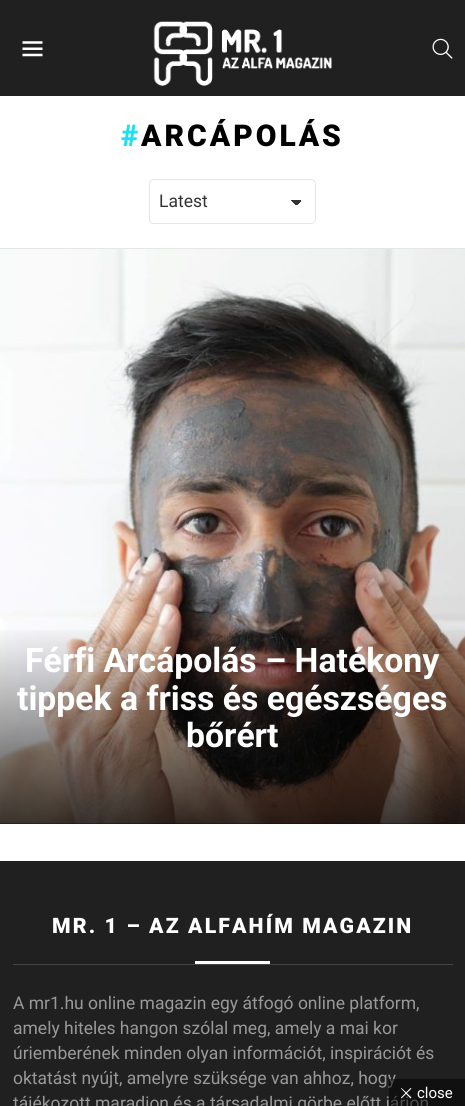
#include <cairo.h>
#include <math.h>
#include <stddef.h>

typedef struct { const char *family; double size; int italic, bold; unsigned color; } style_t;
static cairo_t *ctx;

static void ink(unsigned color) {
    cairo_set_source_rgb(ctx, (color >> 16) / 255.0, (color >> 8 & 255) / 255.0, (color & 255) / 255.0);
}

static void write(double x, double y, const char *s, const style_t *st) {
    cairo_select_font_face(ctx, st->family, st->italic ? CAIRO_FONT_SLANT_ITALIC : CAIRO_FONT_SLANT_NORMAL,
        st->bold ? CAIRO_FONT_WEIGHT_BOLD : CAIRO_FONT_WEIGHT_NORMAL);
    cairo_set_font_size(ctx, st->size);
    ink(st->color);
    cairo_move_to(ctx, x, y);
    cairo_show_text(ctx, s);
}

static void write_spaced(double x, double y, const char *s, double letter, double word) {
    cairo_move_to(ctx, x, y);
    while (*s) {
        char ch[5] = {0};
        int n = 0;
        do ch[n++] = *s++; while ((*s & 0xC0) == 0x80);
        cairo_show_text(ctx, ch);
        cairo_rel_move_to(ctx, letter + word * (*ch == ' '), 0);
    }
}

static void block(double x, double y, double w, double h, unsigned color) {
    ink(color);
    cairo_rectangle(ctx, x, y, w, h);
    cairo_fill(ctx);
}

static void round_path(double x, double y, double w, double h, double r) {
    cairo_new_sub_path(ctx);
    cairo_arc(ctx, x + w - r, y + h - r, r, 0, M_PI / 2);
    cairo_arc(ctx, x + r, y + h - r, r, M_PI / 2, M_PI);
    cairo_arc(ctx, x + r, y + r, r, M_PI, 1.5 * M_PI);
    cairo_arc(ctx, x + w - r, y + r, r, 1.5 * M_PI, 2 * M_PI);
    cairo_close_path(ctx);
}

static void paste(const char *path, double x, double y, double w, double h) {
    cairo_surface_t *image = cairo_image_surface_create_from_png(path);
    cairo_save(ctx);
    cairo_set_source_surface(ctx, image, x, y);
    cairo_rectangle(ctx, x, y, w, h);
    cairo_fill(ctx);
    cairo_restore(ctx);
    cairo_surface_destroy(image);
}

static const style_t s1 = {"Roboto", 17.5, 0, 0, 0x333333};
static const style_t s2 = {"Roboto", 33.75, 0, 1, 0xffffff};
static const style_t s3 = {"Roboto", 17.5, 0, 0, 0x999999};
static const style_t s4 = {"Roboto", 15, 0, 0, 0xffffff};

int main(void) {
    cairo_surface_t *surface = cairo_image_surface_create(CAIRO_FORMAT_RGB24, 465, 1106);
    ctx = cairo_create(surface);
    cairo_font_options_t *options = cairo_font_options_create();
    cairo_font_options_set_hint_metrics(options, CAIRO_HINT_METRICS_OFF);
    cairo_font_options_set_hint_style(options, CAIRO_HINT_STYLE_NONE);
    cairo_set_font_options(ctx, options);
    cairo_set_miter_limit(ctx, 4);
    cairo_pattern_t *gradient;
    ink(0xffffff);
    cairo_paint(ctx);
    block(0, 0, 465, 96, 0x202020);
    paste("pic1.png", 22, 41, 21, 16);
    paste("pic2.png", 153, 21, 179, 65);
    paste("pic3.png", 432, 38, 21, 21);
    cairo_select_font_face(ctx, "Roboto Black", CAIRO_FONT_SLANT_NORMAL, CAIRO_FONT_WEIGHT_NORMAL);
    cairo_set_font_size(ctx, 30);
    ink(0x17e2f6);
    write_spaced(121, 146, "#", 3, 0);
    ink(0x000000);
    write_spaced(141, 146, "ARCÁPOLÁS", 3, 0);
    gradient = cairo_pattern_create_linear(297, 200, 302, 205);
    cairo_pattern_add_color_stop_rgba(gradient, 0.5, 0.2, 0.2, 0.2, 1);
    cairo_pattern_add_color_stop_rgba(gradient, 0.5, 1, 1, 1, 1);
    cairo_set_source(ctx, gradient);
    cairo_pattern_destroy(gradient);
    cairo_rectangle(ctx, 296, 200, 7, 5);
    cairo_fill(ctx);
    gradient = cairo_pattern_create_linear(290, 205, 296, 200);
    cairo_pattern_add_color_stop_rgba(gradient, 0.5, 1, 1, 1, 1);
    cairo_pattern_add_color_stop_rgba(gradient, 0.5, 0.2, 0.2, 0.2, 1);
    cairo_set_source(ctx, gradient);
    cairo_pattern_destroy(gradient);
    cairo_rectangle(ctx, 290, 200, 6, 5);
    cairo_fill(ctx);
    round_path(149.5, 179.5, 166, 44, 4.5);
    ink(0xe6e6e6);
    cairo_set_line_width(ctx, 1);
    cairo_stroke(ctx);
    write(159, 207, "Latest", &s1);
    block(0, 248, 465, 1, 0xe6e6e6);
    block(0, 823, 465, 1, 0x333333);
    paste("pic4.png", 0, 249, 465, 575);
    gradient = cairo_pattern_create_linear(233, 624, 233, 824);
    cairo_pattern_add_color_stop_rgba(gradient, 0, 0, 0, 0, 0);
    cairo_pattern_add_color_stop_rgba(gradient, 1, 0, 0, 0, 0.75);
    cairo_set_source(ctx, gradient);
    cairo_pattern_destroy(gradient);
    cairo_rectangle(ctx, 0, 630, 465, 194);
    cairo_fill(ctx);
    write(25, 672, "Férfi Arcápolás – Hatékony", &s2);
    write(17, 710, "tippek a friss és egészséges", &s2);
    write(186, 747, "bőrért", &s2);
    block(0, 861, 465, 245, 0x202020);
    cairo_select_font_face(ctx, "Roboto Black", CAIRO_FONT_SLANT_NORMAL, CAIRO_FONT_WEIGHT_NORMAL);
    cairo_set_font_size(ctx, 21.25);
    ink(0xffffff);
    write_spaced(52, 933, "MR. 1 – AZ ALFAHÍM MAGAZIN", 2.1, 0);
    block(195, 961, 75, 3, 0xffffff);
    block(13, 964, 440, 1, 0x454545);
    write(13, 1009, "A mr1.hu online magazin egy átfogó online platform,", &s3);
    write(13, 1034, "amely hiteles hangon szólal meg, amely a mai kor", &s3);
    write(13, 1059, "úriemberének minden olyan információt, inspirációt és", &s3);
    write(13, 1084, "oktatást nyújt, amelyre szüksége van ahhoz, hogy", &s3);
    write(13, 1109, "tájékozott maradjon és a társadalmi görbe előtt járjon", &s3);
    cairo_set_source_rgba(ctx, 0, 0, 0, 0.5);
    cairo_rectangle(ctx, 389, 1079, 76, 27);
    cairo_fill(ctx);
    ink(0xffffff);
    cairo_new_path(ctx);
    cairo_move_to(ctx, 401.5, 1088);
    cairo_line_to(ctx, 411.5, 1097.5);
    cairo_line_to(ctx, 410.5, 1098.5);
    cairo_line_to(ctx, 401, 1088.5);
    cairo_close_path(ctx);
    cairo_fill(ctx);
    write(417, 1098, "close", &s4);
    cairo_new_path(ctx);
    cairo_move_to(ctx, 410.5, 1088);
    cairo_line_to(ctx, 411.5, 1088.5);
    cairo_line_to(ctx, 401.5, 1098.5);
    cairo_line_to(ctx, 401, 1097.5);
    cairo_close_path(ctx);
    cairo_fill(ctx);
    cairo_surface_write_to_png(surface, "screenshot.png");
    cairo_font_options_destroy(options);
    cairo_destroy(ctx);
    cairo_surface_destroy(surface);
    return 0;
}
